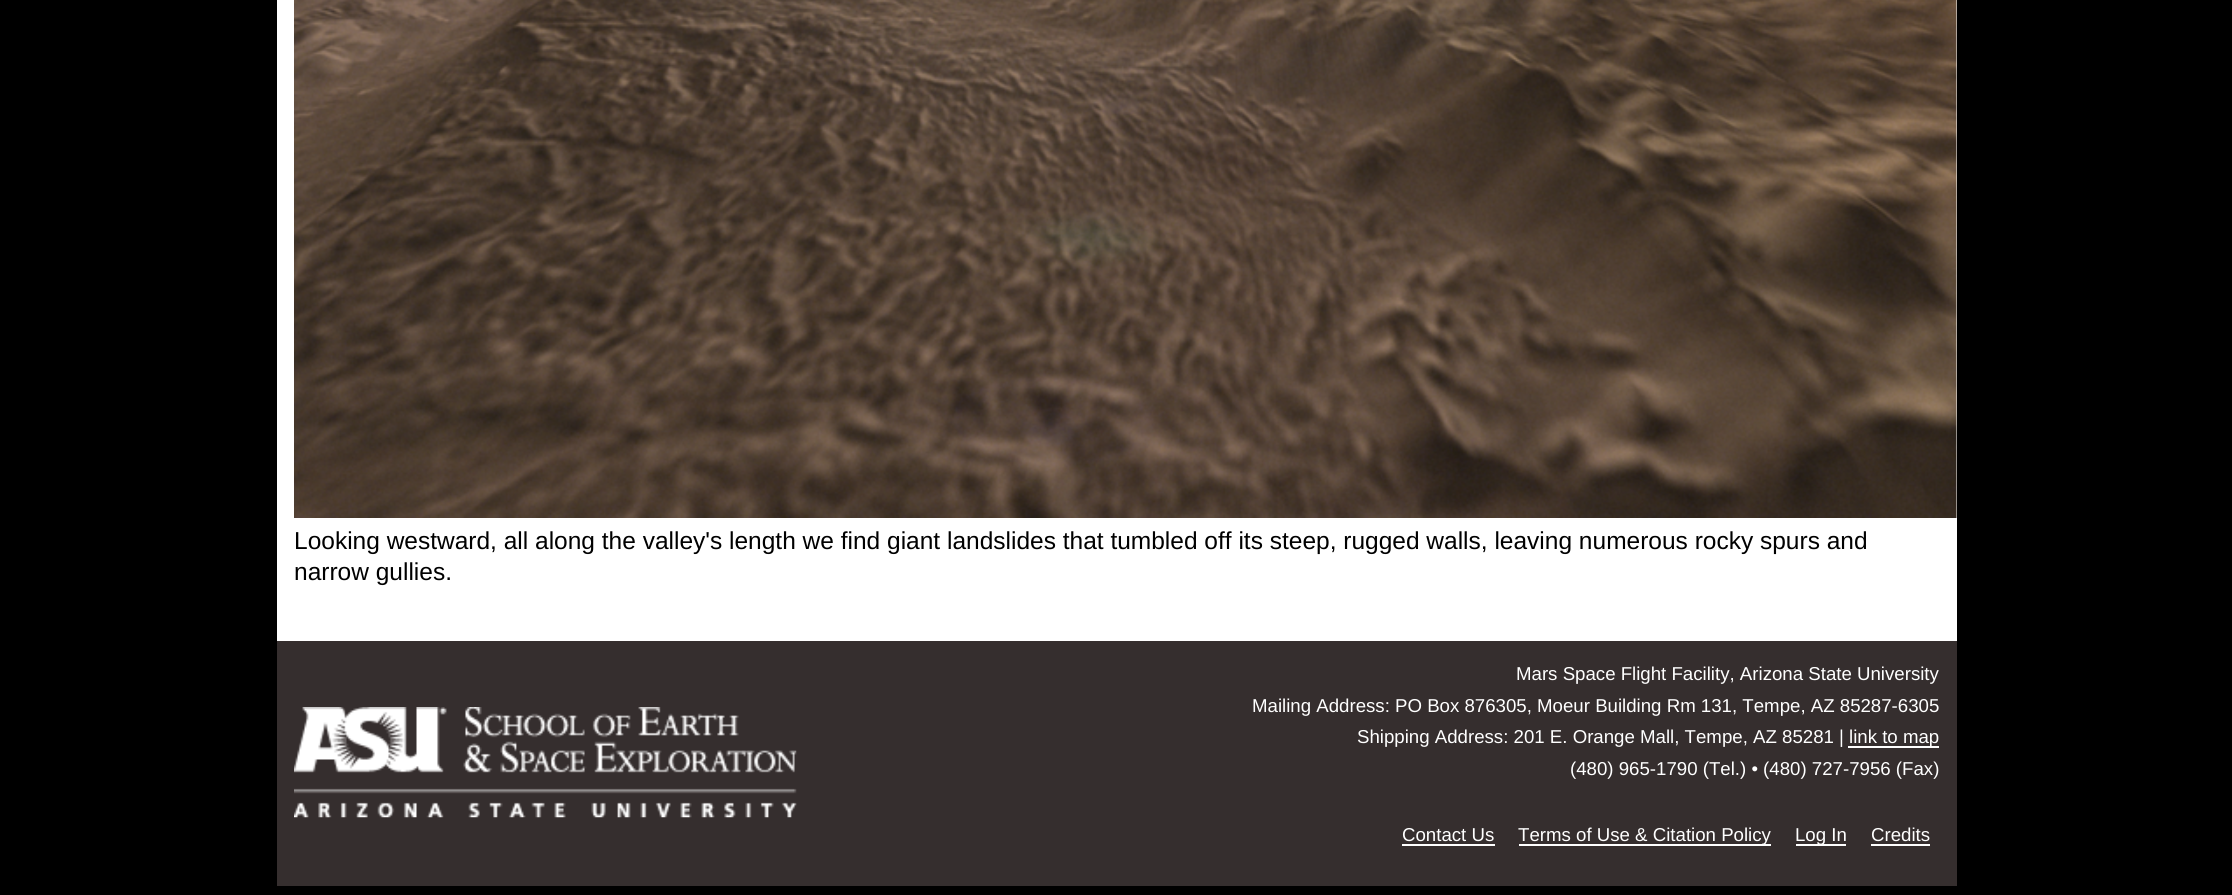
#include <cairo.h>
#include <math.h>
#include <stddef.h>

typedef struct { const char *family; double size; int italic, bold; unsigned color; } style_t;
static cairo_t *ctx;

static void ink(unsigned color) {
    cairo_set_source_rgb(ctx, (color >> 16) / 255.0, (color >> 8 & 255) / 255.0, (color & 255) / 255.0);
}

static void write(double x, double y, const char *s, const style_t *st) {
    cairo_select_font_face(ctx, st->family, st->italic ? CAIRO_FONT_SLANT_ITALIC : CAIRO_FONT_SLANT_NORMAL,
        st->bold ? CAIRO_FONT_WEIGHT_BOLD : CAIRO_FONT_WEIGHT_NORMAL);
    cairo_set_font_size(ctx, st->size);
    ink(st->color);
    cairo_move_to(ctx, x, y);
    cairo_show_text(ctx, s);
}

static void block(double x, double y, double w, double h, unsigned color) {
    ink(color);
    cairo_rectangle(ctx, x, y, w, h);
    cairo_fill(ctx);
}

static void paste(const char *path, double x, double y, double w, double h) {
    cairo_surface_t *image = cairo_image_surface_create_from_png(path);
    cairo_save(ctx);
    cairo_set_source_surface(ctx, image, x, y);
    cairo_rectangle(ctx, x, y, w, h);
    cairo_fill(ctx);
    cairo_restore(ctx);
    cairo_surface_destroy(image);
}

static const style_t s1 = {"Liberation Sans", 24.5, 0, 0, 0x000000};
static const style_t s2 = {"Liberation Sans", 18.65, 0, 0, 0xffffff};

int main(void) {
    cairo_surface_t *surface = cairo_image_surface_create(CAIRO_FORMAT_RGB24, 2232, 895);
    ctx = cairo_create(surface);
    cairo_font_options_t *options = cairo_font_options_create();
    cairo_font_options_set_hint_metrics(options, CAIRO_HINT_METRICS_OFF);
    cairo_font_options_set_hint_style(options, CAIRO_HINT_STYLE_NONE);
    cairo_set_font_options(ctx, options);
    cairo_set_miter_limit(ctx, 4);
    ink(0x000000);
    cairo_paint(ctx);
    block(277, 0, 1680, 641, 0xffffff);
    paste("pic1.png", 294, 0, 1663, 518);
    write(294, 549, "Looking westward, all along the valley's length we find giant landslides that tumbled off its steep, rugged walls, leaving numerous rocky spurs and", &s1);
    write(294, 580, "narrow gullies.", &s1);
    block(277, 641, 1680, 245, 0x352e2e);
    paste("pic2.png", 294, 707, 503, 111);
    write(1516, 680, "Mars Space Flight Facility, Arizona State University", &s2);
    write(1252, 712, "Mailing Address: PO Box 876305, Moeur Building Rm 131, Tempe, AZ 85287-6305", &s2);
    write(1357, 743, "Shipping Address: 201 E. Orange Mall, Tempe, AZ 85281", &s2);
    write(1839, 743, "|", &s2);
    block(1848, 746, 91, 2, 0xffffff);
    write(1849, 743, "link to map", &s2);
    write(1570, 775, "(480) 965-1790 (Tel.) • (480) 727-7956 (Fax)", &s2);
    write(1402, 841, "Contact Us", &s2);
    block(1402, 844, 93, 2, 0xffffff);
    block(1519, 844, 252, 2, 0xffffff);
    write(1518, 841, "Terms of Use & Citation Policy", &s2);
    block(1796, 844, 50, 2, 0xffffff);
    write(1795, 841, "Log In", &s2);
    write(1871, 841, "Credits", &s2);
    block(1871, 844, 59, 2, 0xffffff);
    cairo_surface_write_to_png(surface, "screenshot.png");
    cairo_font_options_destroy(options);
    cairo_destroy(ctx);
    cairo_surface_destroy(surface);
    return 0;
}
